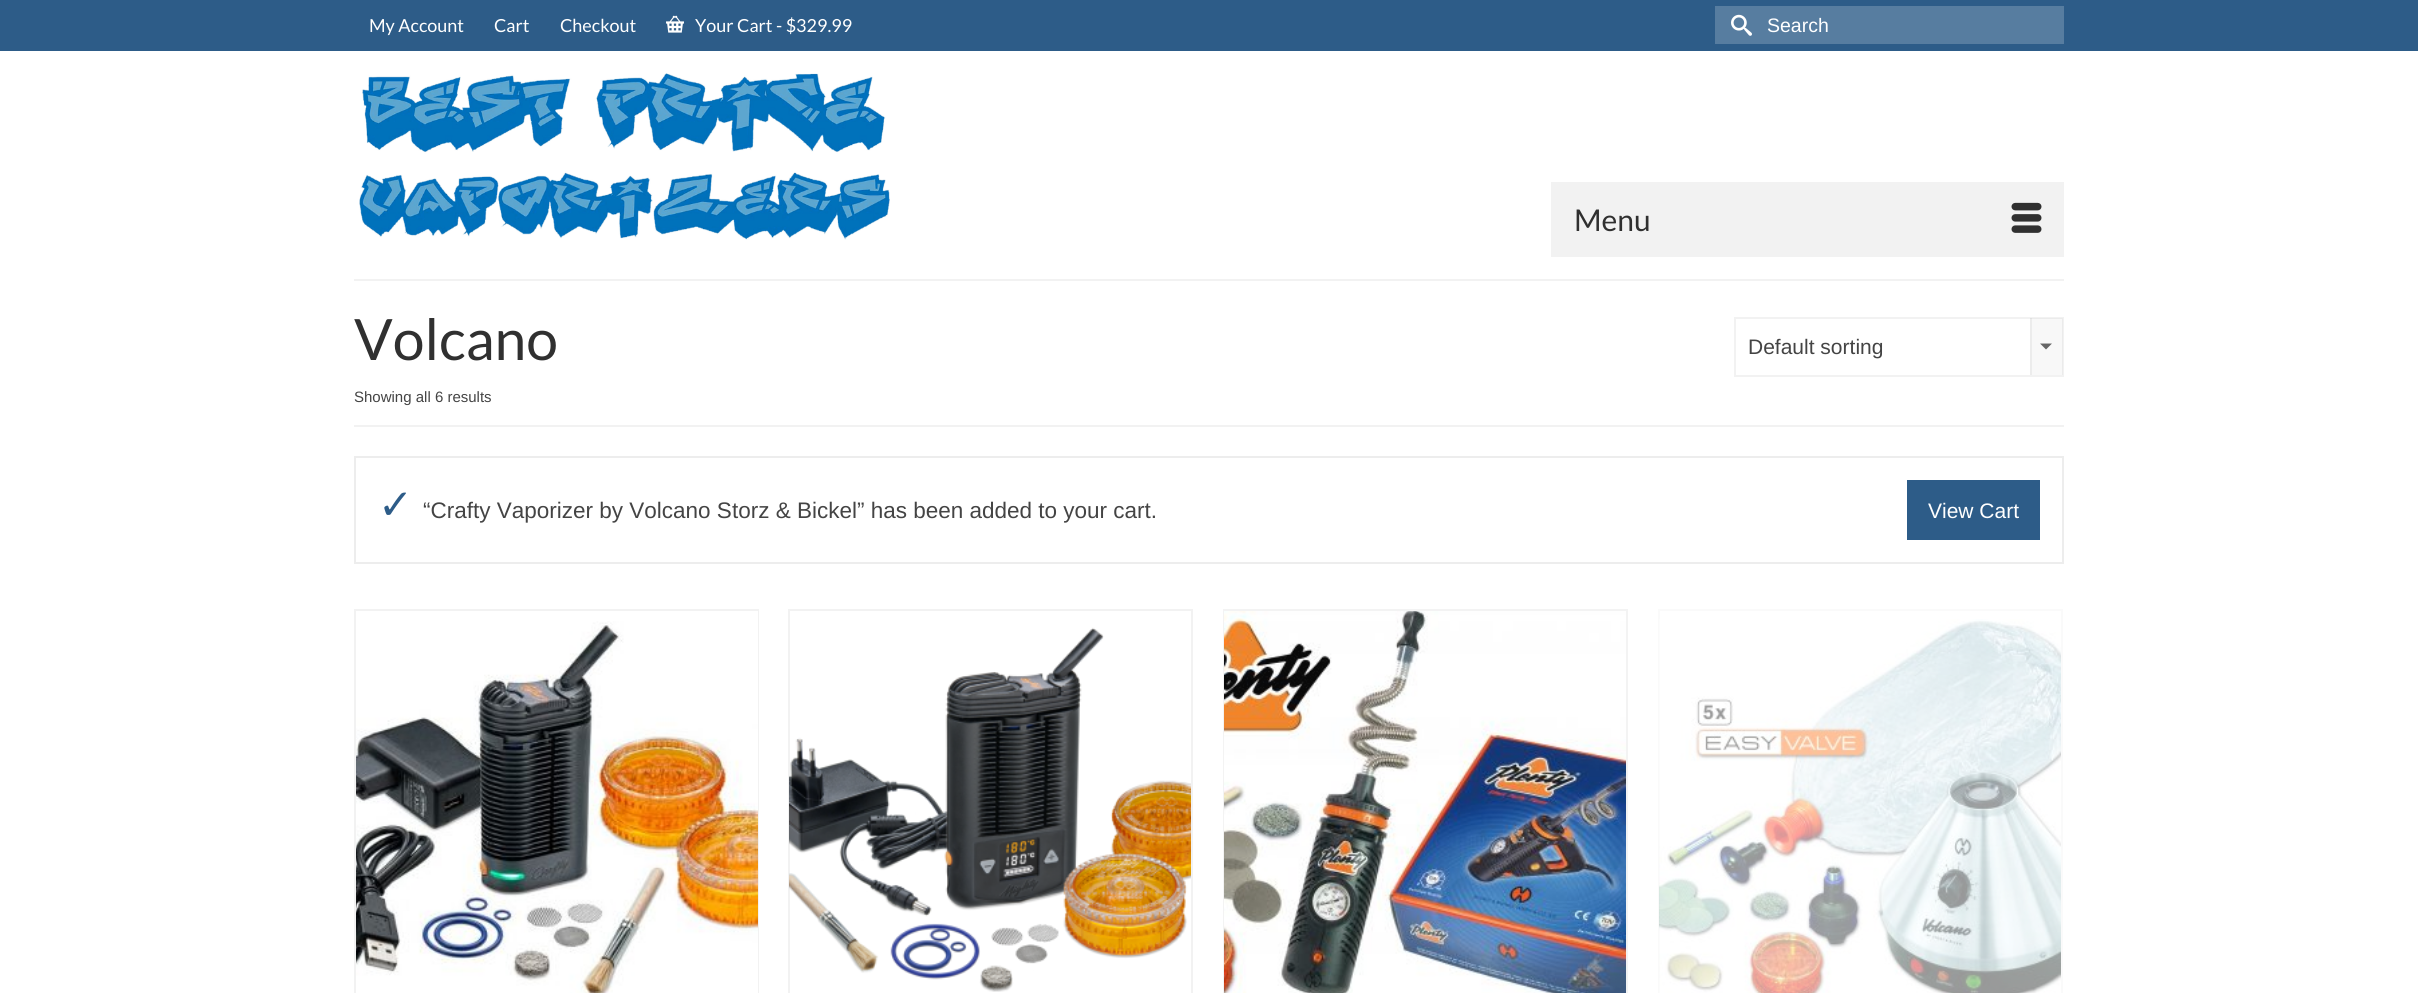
#include <cairo.h>
#include <math.h>
#include <stddef.h>

typedef struct { const char *family; double size; int italic, bold; unsigned color; } style_t;
static cairo_t *ctx;

static void ink(unsigned color) {
    cairo_set_source_rgb(ctx, (color >> 16) / 255.0, (color >> 8 & 255) / 255.0, (color & 255) / 255.0);
}

static void write(double x, double y, const char *s, const style_t *st) {
    cairo_select_font_face(ctx, st->family, st->italic ? CAIRO_FONT_SLANT_ITALIC : CAIRO_FONT_SLANT_NORMAL,
        st->bold ? CAIRO_FONT_WEIGHT_BOLD : CAIRO_FONT_WEIGHT_NORMAL);
    cairo_set_font_size(ctx, st->size);
    ink(st->color);
    cairo_move_to(ctx, x, y);
    cairo_show_text(ctx, s);
}

static void block(double x, double y, double w, double h, unsigned color) {
    ink(color);
    cairo_rectangle(ctx, x, y, w, h);
    cairo_fill(ctx);
}

static void paste(const char *path, double x, double y, double w, double h) {
    cairo_surface_t *image = cairo_image_surface_create_from_png(path);
    cairo_save(ctx);
    cairo_set_source_surface(ctx, image, x, y);
    cairo_rectangle(ctx, x, y, w, h);
    cairo_fill(ctx);
    cairo_restore(ctx);
    cairo_surface_destroy(image);
}

static const style_t s1 = {"Lato", 18, 0, 0, 0xffffff};
static const style_t s2 = {"Liberation Sans", 19.5, 0, 0, 0xffffff};
static const style_t s3 = {"Lato", 30, 0, 0, 0x303030};
static const style_t s4 = {"Lato", 57, 0, 0, 0x303030};
static const style_t s5 = {"Liberation Sans", 15, 0, 0, 0x444444};
static const style_t s6 = {"Liberation Sans", 21, 0, 0, 0x444444};
static const style_t s7 = {"DejaVu Sans", 42, 0, 0, 0x2d5c88};
static const style_t s8 = {"Liberation Sans", 22.5, 0, 0, 0x444444};
static const style_t s9 = {"Liberation Sans", 21, 0, 0, 0xffffff};

int main(void) {
    cairo_surface_t *surface = cairo_image_surface_create(CAIRO_FORMAT_RGB24, 2418, 993);
    ctx = cairo_create(surface);
    cairo_font_options_t *options = cairo_font_options_create();
    cairo_font_options_set_hint_metrics(options, CAIRO_HINT_METRICS_OFF);
    cairo_font_options_set_hint_style(options, CAIRO_HINT_STYLE_NONE);
    cairo_set_font_options(ctx, options);
    cairo_set_miter_limit(ctx, 4);
    ink(0xffffff);
    cairo_paint(ctx);
    block(0, 0, 2418, 51, 0x2d5c88);
    write(369, 32, "My Account", &s1);
    write(494, 32, "Cart", &s1);
    write(560, 32, "Checkout", &s1);
    paste("pic1.png", 666, 15, 18, 18);
    write(695, 32, "Your Cart - $329.99", &s1);
    block(1715, 6, 349, 38, 0x577da0);
    paste("pic2.png", 1731, 14, 21, 22);
    write(1767, 32, "Search", &s2);
    paste("pic3.png", 359, 73, 531, 167);
    block(1551, 182, 513, 75, 0xf2f2f2);
    write(1574, 231, "Menu", &s3);
    paste("pic4.png", 2011, 202, 31, 31);
    block(354, 279, 1710, 2, 0xf2f2f2);
    block(354, 425, 1710, 2, 0xf2f2f2);
    write(354, 360, "Volcano", &s4);
    write(354, 402, "Showing all 6 results", &s5);
    cairo_rectangle(ctx, 1735, 318, 328, 58);
    ink(0xf2f2f2);
    cairo_stroke(ctx);
    write(1748, 354, "Default sorting", &s6);
    cairo_set_source_rgba(ctx, 0, 0, 0, 0.03);
    cairo_rectangle(ctx, 2030, 318, 33, 57);
    cairo_fill(ctx);
    cairo_set_source_rgba(ctx, 0, 0, 0, 0.05);
    cairo_rectangle(ctx, 2030, 318, 2, 57);
    cairo_fill(ctx);
    ink(0x666666);
    cairo_new_path(ctx);
    cairo_move_to(ctx, 2040, 343.5);
    cairo_line_to(ctx, 2052, 343.5);
    cairo_line_to(ctx, 2046, 349.5);
    cairo_close_path(ctx);
    cairo_fill(ctx);
    cairo_rectangle(ctx, 355, 457, 1708, 106);
    ink(0xededed);
    cairo_stroke(ctx);
    write(378, 519, "✓", &s7);
    write(423, 518, "“Crafty Vaporizer by Volcano Storz & Bickel” has been added to your cart.", &s8);
    block(1907, 480, 133, 60, 0x2d5c88);
    write(1928, 518, "View Cart", &s9);
    cairo_rectangle(ctx, 355, 610, 403, 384);
    ink(0xf2f2f2);
    cairo_stroke(ctx);
    paste("pic5.png", 356, 611, 402, 382);
    cairo_rectangle(ctx, 789, 610, 403, 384);
    cairo_stroke(ctx);
    paste("pic6.png", 789, 627, 402, 365);
    cairo_rectangle(ctx, 1224, 610, 403, 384);
    ink(0xf3f3f3);
    cairo_stroke(ctx);
    paste("pic7.png", 1224, 611, 402, 382);
    cairo_rectangle(ctx, 1659, 610, 403, 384);
    ink(0xfafafa);
    cairo_stroke(ctx);
    paste("pic8.png", 1659, 619, 402, 374);
    cairo_surface_write_to_png(surface, "screenshot.png");
    cairo_font_options_destroy(options);
    cairo_destroy(ctx);
    cairo_surface_destroy(surface);
    return 0;
}
